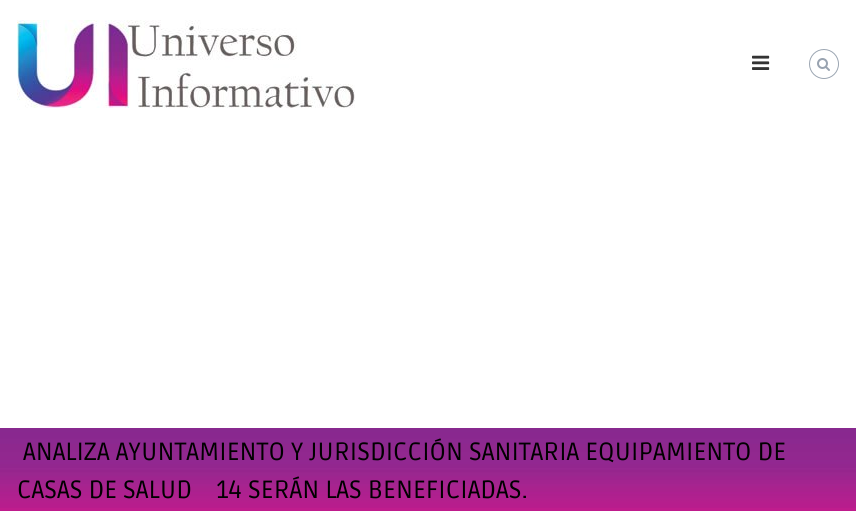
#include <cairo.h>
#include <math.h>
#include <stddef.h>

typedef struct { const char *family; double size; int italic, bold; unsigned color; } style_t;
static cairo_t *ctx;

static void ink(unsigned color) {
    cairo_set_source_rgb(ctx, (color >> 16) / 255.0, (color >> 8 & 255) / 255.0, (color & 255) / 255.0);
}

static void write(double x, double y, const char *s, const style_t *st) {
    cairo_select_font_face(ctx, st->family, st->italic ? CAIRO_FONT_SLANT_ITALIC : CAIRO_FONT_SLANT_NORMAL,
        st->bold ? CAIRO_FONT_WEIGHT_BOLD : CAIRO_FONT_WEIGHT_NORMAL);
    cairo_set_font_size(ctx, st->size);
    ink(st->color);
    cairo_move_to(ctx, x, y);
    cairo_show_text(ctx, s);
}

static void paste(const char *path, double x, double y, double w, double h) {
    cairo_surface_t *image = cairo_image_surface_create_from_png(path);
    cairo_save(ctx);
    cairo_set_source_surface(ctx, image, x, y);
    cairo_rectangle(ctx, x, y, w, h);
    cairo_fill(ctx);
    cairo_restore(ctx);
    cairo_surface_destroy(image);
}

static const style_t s1 = {"Ruda", 25, 0, 0, 0x000000};

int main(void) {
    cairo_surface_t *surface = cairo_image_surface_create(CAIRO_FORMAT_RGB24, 856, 511);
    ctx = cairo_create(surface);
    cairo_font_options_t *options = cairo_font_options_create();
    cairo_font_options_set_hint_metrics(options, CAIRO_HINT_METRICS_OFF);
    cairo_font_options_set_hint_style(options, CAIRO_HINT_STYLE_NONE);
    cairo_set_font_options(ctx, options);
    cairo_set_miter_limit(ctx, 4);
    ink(0xffffff);
    cairo_paint(ctx);
    paste("pic1.png", 17, 20, 338, 88);
    paste("pic2.png", 752, 55, 18, 15);
    cairo_arc(ctx, 824, 64, 14.5, 0, 2 * M_PI);
    ink(0x9ca6b2);
    cairo_set_line_width(ctx, 1);
    cairo_stroke(ctx);
    paste("pic3.png", 817, 58, 13, 13);
    paste("pic4.png", 0, 428, 856, 83);
    write(23, 460, "ANALIZA AYUNTAMIENTO Y JURISDICCIÓN SANITARIA EQUIPAMIENTO DE", &s1);
    write(17, 498, "CASAS DE SALUD    14 SERÁN LAS BENEFICIADAS.", &s1);
    cairo_surface_write_to_png(surface, "screenshot.png");
    cairo_font_options_destroy(options);
    cairo_destroy(ctx);
    cairo_surface_destroy(surface);
    return 0;
}
